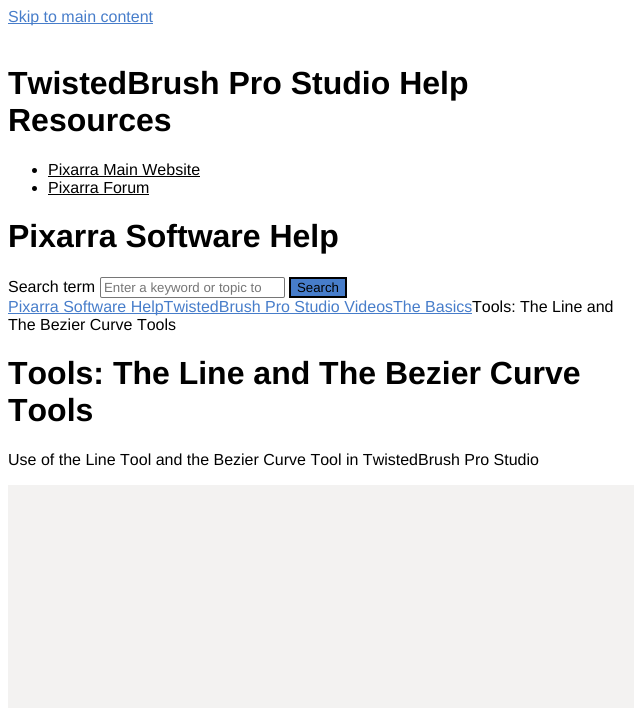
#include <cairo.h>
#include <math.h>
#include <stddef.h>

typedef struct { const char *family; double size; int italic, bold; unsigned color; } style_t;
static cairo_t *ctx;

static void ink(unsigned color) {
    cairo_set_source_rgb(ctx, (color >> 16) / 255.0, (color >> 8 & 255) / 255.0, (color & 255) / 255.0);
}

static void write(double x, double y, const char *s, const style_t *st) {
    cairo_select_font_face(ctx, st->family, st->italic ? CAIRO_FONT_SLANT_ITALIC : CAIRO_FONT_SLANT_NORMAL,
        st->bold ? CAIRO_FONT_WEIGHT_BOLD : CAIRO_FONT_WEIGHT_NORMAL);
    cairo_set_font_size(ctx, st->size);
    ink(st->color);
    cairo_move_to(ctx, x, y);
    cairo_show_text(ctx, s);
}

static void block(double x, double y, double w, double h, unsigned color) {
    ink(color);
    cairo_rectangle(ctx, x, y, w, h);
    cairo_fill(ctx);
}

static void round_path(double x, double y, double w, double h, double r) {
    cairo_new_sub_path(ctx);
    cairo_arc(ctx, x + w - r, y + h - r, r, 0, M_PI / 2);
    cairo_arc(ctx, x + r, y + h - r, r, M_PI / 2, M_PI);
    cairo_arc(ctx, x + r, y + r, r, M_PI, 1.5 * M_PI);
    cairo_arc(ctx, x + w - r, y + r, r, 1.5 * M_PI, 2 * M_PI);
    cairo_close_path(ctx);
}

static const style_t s1 = {"Liberation Sans", 16, 0, 0, 0x477dca};
static const style_t s2 = {"Liberation Sans", 32, 0, 1, 0x000000};
static const style_t s3 = {"Liberation Sans", 16, 0, 0, 0x000000};
static const style_t s4 = {"Liberation Sans", 13.25, 0, 0, 0x757575};
static const style_t s5 = {"Liberation Sans", 13.25, 0, 0, 0x000000};

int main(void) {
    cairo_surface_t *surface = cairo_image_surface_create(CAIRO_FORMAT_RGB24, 634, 708);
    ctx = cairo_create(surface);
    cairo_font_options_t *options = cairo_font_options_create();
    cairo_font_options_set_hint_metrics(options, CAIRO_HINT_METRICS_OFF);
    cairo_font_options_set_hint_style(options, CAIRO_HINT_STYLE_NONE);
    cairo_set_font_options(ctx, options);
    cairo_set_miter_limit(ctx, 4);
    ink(0xffffff);
    cairo_paint(ctx);
    block(8, 23, 145, 1, 0x477dca);
    write(8, 22, "Skip to main content", &s1);
    write(8, 94, "TwistedBrush Pro Studio Help", &s2);
    write(8, 131, "Resources", &s2);
    cairo_new_path(ctx);
    cairo_arc(ctx, 34.5, 170.5, 2.5, 0, 2 * M_PI);
    cairo_fill(ctx);
    write(48, 175, "Pixarra Main Website", &s3);
    block(48, 176, 152, 1, 0x000000);
    cairo_new_path(ctx);
    cairo_arc(ctx, 34.5, 188.5, 2.5, 0, 2 * M_PI);
    cairo_fill(ctx);
    write(48, 193, "Pixarra Forum", &s3);
    block(48, 194, 101, 1, 0x000000);
    write(8, 247, "Pixarra Software Help", &s2);
    write(8, 292, "Search term", &s3);
    round_path(100.5, 277.5, 184, 20, 1.5);
    ink(0x767676);
    cairo_set_line_width(ctx, 1);
    cairo_stroke(ctx);
    write(104, 292, "Enter a keyword or topic to", &s4);
    ink(0x477dca);
    cairo_rectangle(ctx, 290, 278, 56, 19);
    cairo_fill_preserve(ctx);
    ink(0x000000);
    cairo_set_line_width(ctx, 2);
    cairo_stroke(ctx);
    write(297, 292, "Search", &s5);
    block(8, 313, 464, 1, 0x477dca);
    write(8, 312, "Pixarra Software HelpTwistedBrush Pro Studio VideosThe Basics", &s1);
    write(472, 312, "Tools: The Line and", &s3);
    write(8, 330, "The Bezier Curve Tools", &s3);
    write(8, 384, "Tools: The Line and The Bezier Curve", &s2);
    write(8, 421, "Tools", &s2);
    write(8, 465, "Use of the Line Tool and the Bezier Curve Tool in TwistedBrush Pro Studio", &s3);
    block(8, 485, 626, 223, 0xf3f2f1);
    cairo_surface_write_to_png(surface, "screenshot.png");
    cairo_font_options_destroy(options);
    cairo_destroy(ctx);
    cairo_surface_destroy(surface);
    return 0;
}
